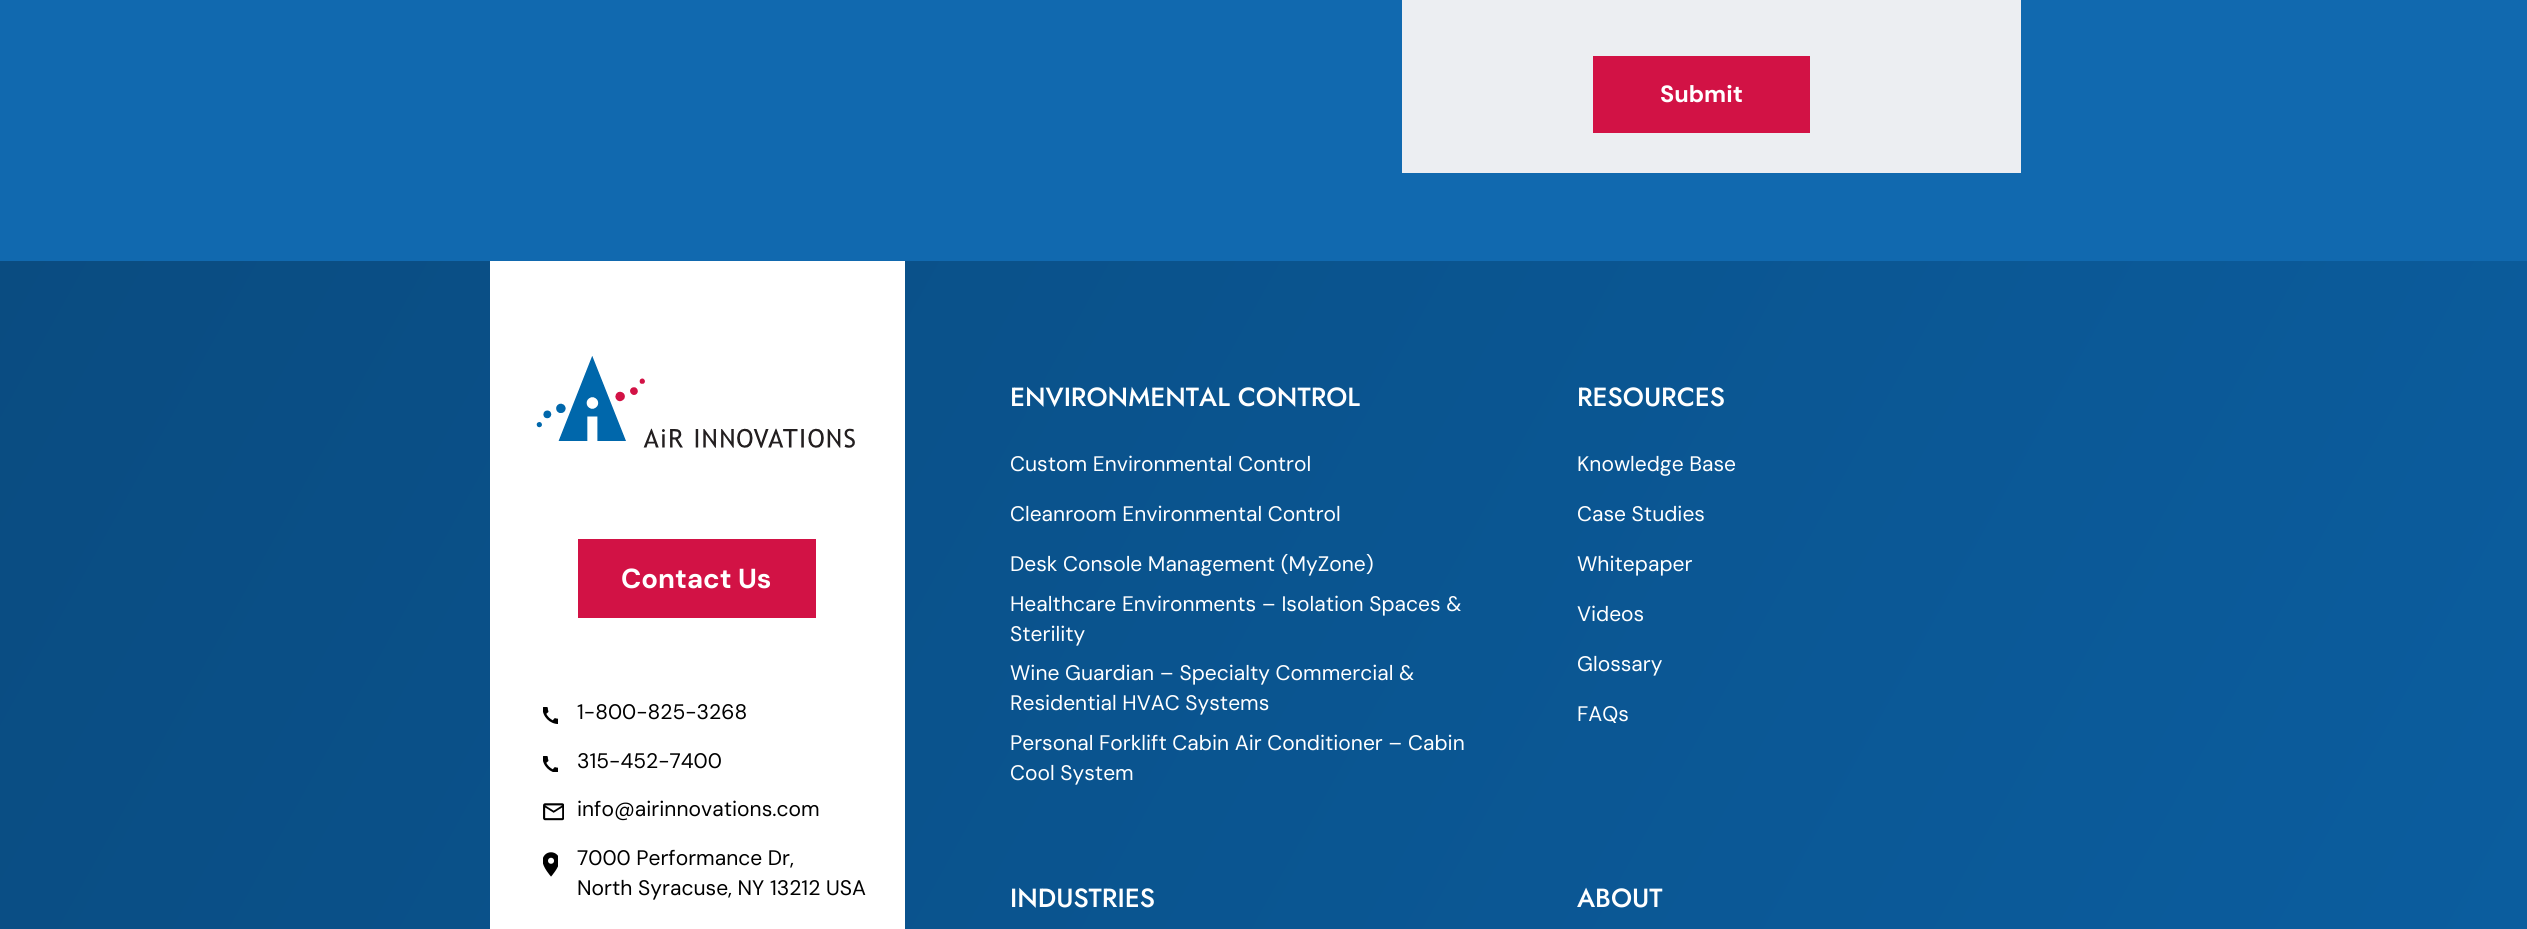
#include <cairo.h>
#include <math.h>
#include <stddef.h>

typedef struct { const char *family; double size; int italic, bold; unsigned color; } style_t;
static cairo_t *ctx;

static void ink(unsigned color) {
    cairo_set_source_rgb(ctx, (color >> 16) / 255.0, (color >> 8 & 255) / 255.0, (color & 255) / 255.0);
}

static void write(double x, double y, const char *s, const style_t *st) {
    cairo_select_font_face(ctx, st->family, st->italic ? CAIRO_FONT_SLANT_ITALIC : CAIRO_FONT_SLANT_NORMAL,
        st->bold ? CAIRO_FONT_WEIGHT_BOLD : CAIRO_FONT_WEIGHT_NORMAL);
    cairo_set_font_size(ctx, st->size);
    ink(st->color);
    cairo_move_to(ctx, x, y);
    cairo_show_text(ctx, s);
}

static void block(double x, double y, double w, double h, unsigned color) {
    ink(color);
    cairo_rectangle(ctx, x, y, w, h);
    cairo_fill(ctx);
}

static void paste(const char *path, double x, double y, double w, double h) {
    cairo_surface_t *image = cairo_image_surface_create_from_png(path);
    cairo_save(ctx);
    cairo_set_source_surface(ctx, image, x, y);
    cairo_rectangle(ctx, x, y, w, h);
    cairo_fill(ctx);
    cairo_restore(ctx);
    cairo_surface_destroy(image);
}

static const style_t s1 = {"DM Sans", 23.5, 0, 1, 0xffffff};
static const style_t s2 = {"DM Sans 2", 27.5, 0, 1, 0xffffff};
static const style_t s3 = {"DM Sans", 21, 0, 0, 0x000000};
static const style_t s4 = {"Jost Medium", 26.25, 0, 0, 0xffffff};
static const style_t s5 = {"DM Sans", 21, 0, 0, 0xffffff};

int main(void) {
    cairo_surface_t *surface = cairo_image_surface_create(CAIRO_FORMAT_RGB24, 2527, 929);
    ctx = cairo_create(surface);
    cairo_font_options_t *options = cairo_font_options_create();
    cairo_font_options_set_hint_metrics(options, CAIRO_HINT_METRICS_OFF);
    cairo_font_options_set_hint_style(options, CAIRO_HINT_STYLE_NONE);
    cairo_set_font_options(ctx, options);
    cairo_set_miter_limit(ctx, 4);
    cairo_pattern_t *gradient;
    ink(0xffffff);
    cairo_paint(ctx);
    block(0, 0, 2527, 261, 0x1169af);
    block(1402, 0, 619, 173, 0xeceef2);
    block(1593, 56, 217, 77, 0xd21245);
    write(1660, 102, "Submit", &s1);
    gradient = cairo_pattern_create_linear(16, 232, 2511, 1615);
    cairo_pattern_add_color_stop_rgba(gradient, 0, 0.039, 0.298, 0.506, 1);
    cairo_pattern_add_color_stop_rgba(gradient, 1, 0.043, 0.373, 0.635, 1);
    cairo_set_source(ctx, gradient);
    cairo_pattern_destroy(gradient);
    cairo_rectangle(ctx, 0, 261, 2527, 668);
    cairo_fill(ctx);
    block(490, 261, 415, 668, 0xffffff);
    paste("pic1.png", 536, 356, 319, 92);
    block(578, 539, 238, 79, 0xd21245);
    write(621, 588, "Contact Us", &s2);
    paste("pic2.png", 543, 707, 15, 17);
    write(577, 719, "1-800-825-3268", &s3);
    paste("pic3.png", 543, 756, 15, 16);
    write(577, 768, "315-452-7400", &s3);
    paste("pic4.png", 543, 803, 21, 18);
    write(577, 816, "info@airinnovations.com", &s3);
    paste("pic5.png", 543, 852, 15, 25);
    write(577, 865, "7000 Performance Dr,", &s3);
    write(577, 895, "North Syracuse, NY 13212 USA", &s3);
    write(1010, 406, "ENVIRONMENTAL CONTROL", &s4);
    write(1010, 471, "Custom Environmental Control", &s5);
    write(1010, 521, "Cleanroom Environmental Control", &s5);
    write(1010, 571, "Desk Console Management (MyZone)", &s5);
    write(1010, 611, "Healthcare Environments – Isolation Spaces &", &s5);
    write(1010, 641, "Sterility", &s5);
    write(1010, 680, "Wine Guardian – Specialty Commercial &", &s5);
    write(1010, 710, "Residential HVAC Systems", &s5);
    write(1010, 750, "Personal Forklift Cabin Air Conditioner – Cabin", &s5);
    write(1010, 780, "Cool System", &s5);
    write(1577, 406, "RESOURCES", &s4);
    write(1577, 471, "Knowledge Base", &s5);
    write(1577, 521, "Case Studies", &s5);
    write(1577, 571, "Whitepaper", &s5);
    write(1577, 621, "Videos", &s5);
    write(1577, 671, "Glossary", &s5);
    write(1577, 721, "FAQs", &s5);
    write(1010, 907, "INDUSTRIES", &s4);
    write(1577, 907, "ABOUT", &s4);
    cairo_surface_write_to_png(surface, "screenshot.png");
    cairo_font_options_destroy(options);
    cairo_destroy(ctx);
    cairo_surface_destroy(surface);
    return 0;
}
